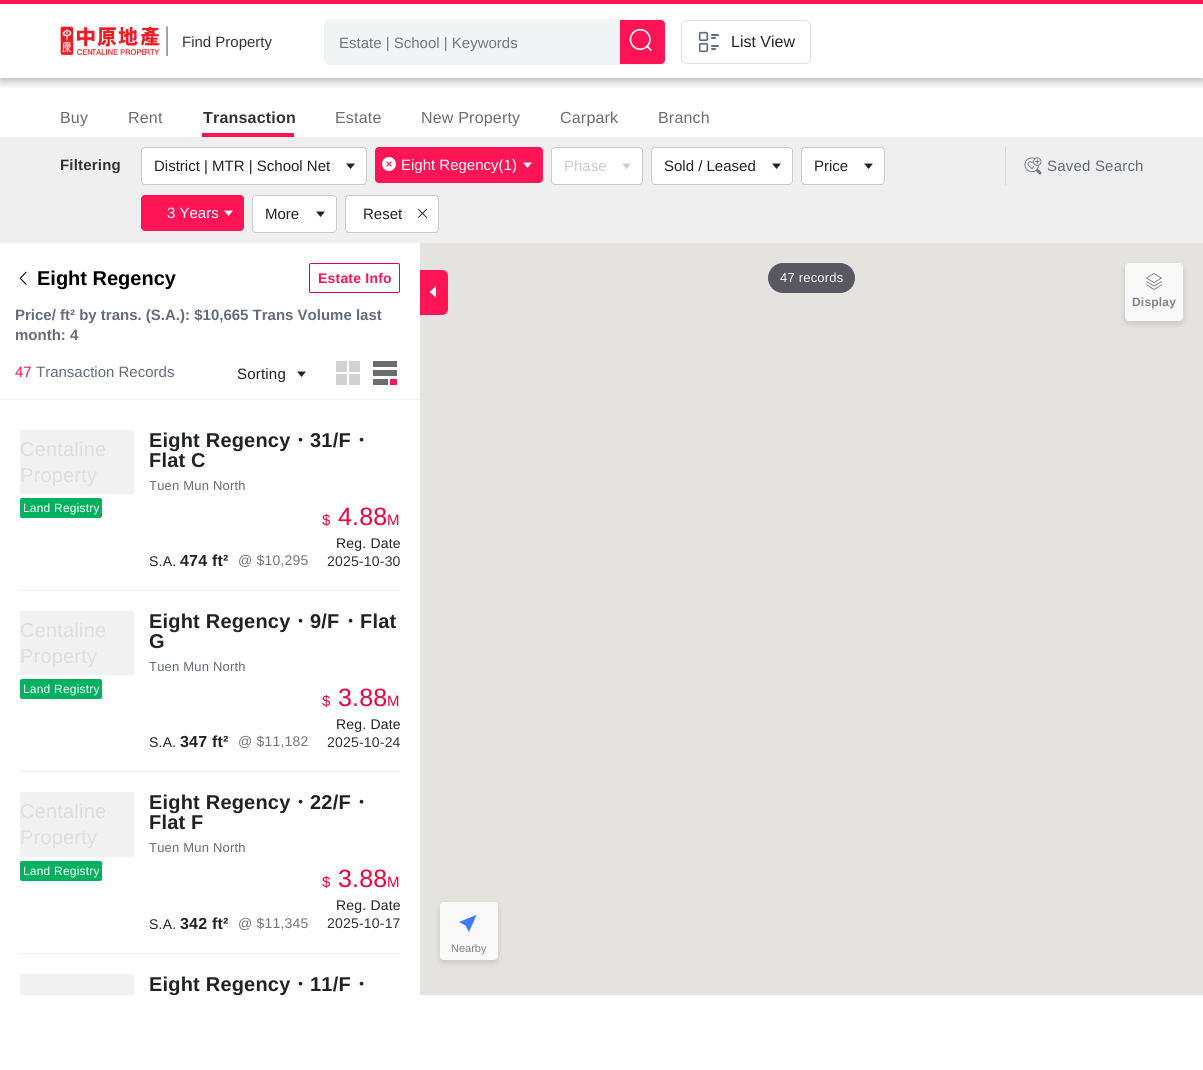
#include <cairo.h>
#include <math.h>
#include <stddef.h>

typedef struct { const char *family; double size; int italic, bold; unsigned color; } style_t;
static cairo_t *ctx;

static void ink(unsigned color) {
    cairo_set_source_rgb(ctx, (color >> 16) / 255.0, (color >> 8 & 255) / 255.0, (color & 255) / 255.0);
}

static void write(double x, double y, const char *s, const style_t *st) {
    cairo_select_font_face(ctx, st->family, st->italic ? CAIRO_FONT_SLANT_ITALIC : CAIRO_FONT_SLANT_NORMAL,
        st->bold ? CAIRO_FONT_WEIGHT_BOLD : CAIRO_FONT_WEIGHT_NORMAL);
    cairo_set_font_size(ctx, st->size);
    ink(st->color);
    cairo_move_to(ctx, x, y);
    cairo_show_text(ctx, s);
}

static void write_spaced(double x, double y, const char *s, double letter, double word) {
    cairo_move_to(ctx, x, y);
    while (*s) {
        char ch[5] = {0};
        int n = 0;
        do ch[n++] = *s++; while ((*s & 0xC0) == 0x80);
        cairo_show_text(ctx, ch);
        cairo_rel_move_to(ctx, letter + word * (*ch == ' '), 0);
    }
}

static void block(double x, double y, double w, double h, unsigned color) {
    ink(color);
    cairo_rectangle(ctx, x, y, w, h);
    cairo_fill(ctx);
}

static void round_path(double x, double y, double w, double h, double r) {
    cairo_new_sub_path(ctx);
    cairo_arc(ctx, x + w - r, y + h - r, r, 0, M_PI / 2);
    cairo_arc(ctx, x + r, y + h - r, r, M_PI / 2, M_PI);
    cairo_arc(ctx, x + r, y + r, r, M_PI, 1.5 * M_PI);
    cairo_arc(ctx, x + w - r, y + r, r, 1.5 * M_PI, 2 * M_PI);
    cairo_close_path(ctx);
}

static void blur_box(double x, double y, double w, double h, double r, double blur, double alpha) {
    cairo_push_group_with_content(ctx, CAIRO_CONTENT_ALPHA);
    cairo_set_operator(ctx, CAIRO_OPERATOR_SOURCE);
    for (int i = 15; i >= -15 && fmin(w, h) + blur * i / 3 > 0; i -= 2) {
        double e = blur * i / 6;
        cairo_set_source_rgba(ctx, 0, 0, 0, alpha * erfc((i - 1) / 8.5) / 2);
        round_path(x - e, y - e, w + 2 * e, h + 2 * e, fmax(0, fmin(r + e + blur * .6, fmin(w, h) / 2 + e)));
        cairo_fill(ctx);
    }
    cairo_pattern_t *soft = cairo_pop_group(ctx);
    cairo_mask(ctx, soft);
    cairo_pattern_destroy(soft);
}

static void paste(const char *path, double x, double y, double w, double h) {
    cairo_surface_t *image = cairo_image_surface_create_from_png(path);
    cairo_save(ctx);
    cairo_set_source_surface(ctx, image, x, y);
    cairo_rectangle(ctx, x, y, w, h);
    cairo_fill(ctx);
    cairo_restore(ctx);
    cairo_surface_destroy(image);
}

static const style_t s1 = {"Liberation Sans", 15, 0, 0, 0x333333};
static const style_t s2 = {"Liberation Sans", 15, 0, 0, 0x757575};
static const style_t s3 = {"Liberation Sans", 16, 0, 0, 0x202228};
static const style_t s4 = {"Liberation Sans", 15, 0, 0, 0x202228};
static const style_t s5 = {"Liberation Sans", 15, 0, 0, 0xffffff};
static const style_t s6 = {"Liberation Sans", 15, 0, 0, 0xcbcbcb};
static const style_t s7 = {"Liberation Sans", 20, 0, 1, 0x000000};
static const style_t s8 = {"Liberation Sans", 15, 0, 1, 0x646c79};
static const style_t s9 = {"Liberation Sans", 15, 0, 0, 0xff1555};
static const style_t s10 = {"Liberation Sans", 15, 0, 0, 0x646c79};
static const style_t s11 = {"Liberation Sans", 11, 0, 0, 0x7e848d};

int main(void) {
    cairo_surface_t *surface = cairo_image_surface_create(CAIRO_FORMAT_RGB24, 1203, 1070);
    ctx = cairo_create(surface);
    cairo_font_options_t *options = cairo_font_options_create();
    cairo_font_options_set_hint_metrics(options, CAIRO_HINT_METRICS_OFF);
    cairo_font_options_set_hint_style(options, CAIRO_HINT_STYLE_NONE);
    cairo_set_font_options(ctx, options);
    cairo_set_miter_limit(ctx, 4);
    ink(0xffffff);
    cairo_paint(ctx);
    cairo_save(ctx);
    cairo_rectangle(ctx, 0, 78, 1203, 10);
    cairo_clip(ctx);
    ink(0x000000);
    blur_box(0, 7, 1203, 74, 0, 5, 0.3);
    cairo_restore(ctx);
    block(0, 0, 1203, 4, 0xff1555);
    paste("pic1.png", 60, 26, 108, 30);
    write(182, 47, "Find Property", &s1);
    ink(0xf0f4f5);
    round_path(324, 19, 342, 46, 5);
    cairo_fill(ctx);
    cairo_save(ctx);
    cairo_rectangle(ctx, 339, 34, 272, 17);
    cairo_clip(ctx);
    write(339, 48, "Estate | School | Keywords", &s2);
    cairo_restore(ctx);
    cairo_save(ctx);
    round_path(325, 20, 340, 44, 4);
    cairo_clip(ctx);
    ink(0xff1555);
    cairo_new_path(ctx);
    cairo_move_to(ctx, 620, 19);
    cairo_line_to(ctx, 662, 19);
    cairo_curve_to(ctx, 664, 19, 666, 21, 666, 23);
    cairo_line_to(ctx, 666, 61);
    cairo_curve_to(ctx, 666, 63, 664, 65, 662, 65);
    cairo_line_to(ctx, 620, 65);
    cairo_close_path(ctx);
    cairo_fill(ctx);
    cairo_restore(ctx);
    paste("pic2.png", 629, 28, 23, 23);
    round_path(681.5, 20.5, 129, 43, 5.5);
    ink(0xdce1e3);
    cairo_set_line_width(ctx, 1);
    cairo_stroke(ctx);
    paste("pic3.png", 698, 31, 21, 22);
    write(731, 47, "List View", &s3);
    ink(0x6c6c6c);
    write_spaced(60, 123, "Buy", 0.2, 0);
    write_spaced(128, 123, "Rent", 0.2, 0);
    cairo_select_font_face(ctx, "Liberation Sans", CAIRO_FONT_SLANT_NORMAL, CAIRO_FONT_WEIGHT_BOLD);
    ink(0x333333);
    write_spaced(203, 123, "Transaction", 0.2, 0);
    cairo_select_font_face(ctx, "Liberation Sans", CAIRO_FONT_SLANT_NORMAL, CAIRO_FONT_WEIGHT_NORMAL);
    ink(0x6c6c6c);
    write_spaced(335, 123, "Estate", 0.2, 0);
    write_spaced(421, 123, "New Property", 0.2, 0);
    write_spaced(560, 123, "Carpark", 0.2, 0);
    write_spaced(658, 123, "Branch", 0.2, 0);
    block(202, 133, 92, 4, 0xff1555);
    block(0, 137, 1203, 106, 0xefefef);
    cairo_select_font_face(ctx, "Liberation Sans", CAIRO_FONT_SLANT_NORMAL, CAIRO_FONT_WEIGHT_BOLD);
    cairo_set_font_size(ctx, 15);
    ink(0x333333);
    write_spaced(60, 170, "Filtering", 0.2, 0);
    ink(0xffffff);
    round_path(141.5, 147.5, 225, 37, 3.5);
    cairo_fill_preserve(ctx);
    ink(0xcccccc);
    cairo_stroke(ctx);
    write(154, 171, "District | MTR | School Net", &s4);
    cairo_new_path(ctx);
    cairo_move_to(ctx, 346, 163.5);
    cairo_line_to(ctx, 350.5, 169);
    cairo_line_to(ctx, 355, 163.5);
    cairo_close_path(ctx);
    cairo_fill(ctx);
    ink(0xff1555);
    round_path(375, 147, 168, 36, 4);
    cairo_fill(ctx);
    paste("pic4.png", 382, 157, 14, 14);
    write(401, 170, "Eight Regency(1)", &s5);
    cairo_new_path(ctx);
    cairo_move_to(ctx, 523, 162.5);
    cairo_line_to(ctx, 527.5, 168);
    cairo_line_to(ctx, 532, 162.5);
    cairo_close_path(ctx);
    cairo_fill(ctx);
    round_path(551.5, 147.5, 91, 37, 3.5);
    cairo_fill_preserve(ctx);
    ink(0xcbcbcb);
    cairo_stroke(ctx);
    write(564, 171, "Phase", &s6);
    cairo_new_path(ctx);
    cairo_move_to(ctx, 622, 163.5);
    cairo_line_to(ctx, 626.5, 169);
    cairo_line_to(ctx, 631, 163.5);
    cairo_close_path(ctx);
    cairo_fill(ctx);
    ink(0xffffff);
    round_path(651.5, 147.5, 141, 37, 3.5);
    cairo_fill_preserve(ctx);
    ink(0xcccccc);
    cairo_stroke(ctx);
    write(664, 171, "Sold / Leased", &s4);
    cairo_new_path(ctx);
    cairo_move_to(ctx, 772, 163.5);
    cairo_line_to(ctx, 776.5, 169);
    cairo_line_to(ctx, 781, 163.5);
    cairo_close_path(ctx);
    cairo_fill(ctx);
    ink(0xffffff);
    round_path(801.5, 147.5, 83, 37, 3.5);
    cairo_fill_preserve(ctx);
    ink(0xcccccc);
    cairo_stroke(ctx);
    write(814, 171, "Price", &s4);
    cairo_new_path(ctx);
    cairo_move_to(ctx, 864, 163.5);
    cairo_line_to(ctx, 868.5, 169);
    cairo_line_to(ctx, 873, 163.5);
    cairo_close_path(ctx);
    cairo_fill(ctx);
    ink(0xff1555);
    round_path(141, 195, 103, 36, 4);
    cairo_fill(ctx);
    write(167, 218, "3 Years", &s5);
    cairo_new_path(ctx);
    cairo_move_to(ctx, 224, 210.5);
    cairo_line_to(ctx, 228.5, 216);
    cairo_line_to(ctx, 233, 210.5);
    cairo_close_path(ctx);
    cairo_fill(ctx);
    round_path(252.5, 195.5, 84, 37, 3.5);
    cairo_fill_preserve(ctx);
    ink(0xcccccc);
    cairo_stroke(ctx);
    write(265, 219, "More", &s4);
    cairo_new_path(ctx);
    cairo_move_to(ctx, 316, 211.5);
    cairo_line_to(ctx, 320.5, 217);
    cairo_line_to(ctx, 325, 211.5);
    cairo_close_path(ctx);
    cairo_fill(ctx);
    ink(0xffffff);
    round_path(345.5, 195.5, 93, 37, 3.5);
    cairo_fill_preserve(ctx);
    ink(0xcccccc);
    cairo_stroke(ctx);
    write(363, 219, "Reset", &s4);
    paste("pic5.png", 418, 208, 9, 10);
    block(1005, 147, 1, 38, 0xd7d7d7);
    paste("pic6.png", 1024, 157, 18, 18);
    ink(0x646c79);
    write_spaced(1047, 171, "Saved Search", 0.2, 0);
    block(0, 399, 420, 1, 0xefefef);
    paste("pic7.png", 19, 271, 8, 14);
    write(37, 285, "Eight Regency", &s7);
    round_path(309.5, 263.5, 90, 29, 1.5);
    ink(0xeb003c);
    cairo_stroke(ctx);
    cairo_set_font_size(ctx, 14);
    ink(0xff1555);
    write_spaced(318, 283, "Estate Info", 0.2, 0);
    write(15, 320, "Price/ ft² by trans. (S.A.): $10,665 Trans Volume last", &s8);
    write(15, 340, "month: 4", &s8);
    write(15, 377, "47", &s9);
    write(36, 377, "Transaction Records", &s10);
    ink(0x202228);
    write_spaced(237, 379, "Sorting", 0.2, 0);
    cairo_new_path(ctx);
    cairo_move_to(ctx, 297, 371.5);
    cairo_line_to(ctx, 301.5, 377);
    cairo_line_to(ctx, 306, 371.5);
    cairo_close_path(ctx);
    cairo_fill(ctx);
    paste("pic8.png", 336, 361, 24, 24);
    paste("pic9.png", 373, 361, 24, 24);
    block(20, 590, 380, 1, 0xefefef);
    block(20, 430, 114, 64, 0xf1f1f1);
    cairo_set_font_size(ctx, 20);
    ink(0xdedede);
    write_spaced(20, 456, "Centaline", 0.2, 0);
    write_spaced(20, 482, "Property", 0.2, 0);
    ink(0x00b260);
    round_path(20, 498, 82, 20, 2);
    cairo_fill(ctx);
    cairo_set_font_size(ctx, 12);
    ink(0xffffff);
    write_spaced(23, 512, "Land Registry", 0.2, 0);
    cairo_select_font_face(ctx, "Liberation Sans", CAIRO_FONT_SLANT_NORMAL, CAIRO_FONT_WEIGHT_BOLD);
    cairo_set_font_size(ctx, 20);
    ink(0x202228);
    write_spaced(149, 447, "Eight Regency", 0.2, 0);
    cairo_select_font_face(ctx, "WenQuanYi Zen Hei", CAIRO_FONT_SLANT_NORMAL, CAIRO_FONT_WEIGHT_BOLD);
    write_spaced(290, 447, "・", 0.2, 0);
    cairo_select_font_face(ctx, "Liberation Sans", CAIRO_FONT_SLANT_NORMAL, CAIRO_FONT_WEIGHT_BOLD);
    write_spaced(310, 447, "31/F", 0.2, 0);
    cairo_select_font_face(ctx, "WenQuanYi Zen Hei", CAIRO_FONT_SLANT_NORMAL, CAIRO_FONT_WEIGHT_BOLD);
    write_spaced(351, 447, "・", 0.2, 0);
    cairo_select_font_face(ctx, "Liberation Sans", CAIRO_FONT_SLANT_NORMAL, CAIRO_FONT_WEIGHT_BOLD);
    write_spaced(149, 467, "Flat C", 0.2, 0);
    cairo_select_font_face(ctx, "Liberation Sans", CAIRO_FONT_SLANT_NORMAL, CAIRO_FONT_WEIGHT_NORMAL);
    cairo_set_font_size(ctx, 13);
    ink(0x646c79);
    write_spaced(149, 490, "Tuen Mun North", 0.2, 0);
    cairo_set_font_size(ctx, 14);
    ink(0x202228);
    write_spaced(149, 566, "S.A.", 0.2, 0);
    cairo_select_font_face(ctx, "Liberation Sans", CAIRO_FONT_SLANT_NORMAL, CAIRO_FONT_WEIGHT_BOLD);
    cairo_set_font_size(ctx, 16);
    write_spaced(180, 566, "474 ft²", 0.2, 0);
    cairo_select_font_face(ctx, "Liberation Sans", CAIRO_FONT_SLANT_NORMAL, CAIRO_FONT_WEIGHT_NORMAL);
    cairo_set_font_size(ctx, 14);
    ink(0x757575);
    write_spaced(238, 565, "@ $10,295", 0.2, 0);
    cairo_set_font_size(ctx, 15);
    ink(0xeb003b);
    write_spaced(322, 525, "$", 0.2, 0);
    cairo_set_font_size(ctx, 25);
    write_spaced(338, 525, "4.88", 0.2, 0);
    cairo_set_font_size(ctx, 15);
    write_spaced(387, 525, "M", 0.2, 0);
    cairo_set_font_size(ctx, 14);
    ink(0x202228);
    write_spaced(336, 548, "Reg. Date", 0.2, 0);
    ink(0x333333);
    write_spaced(327, 566, "2025-10-30", 0.2, 0);
    block(20, 771, 380, 1, 0xefefef);
    block(20, 611, 114, 64, 0xf1f1f1);
    cairo_set_font_size(ctx, 20);
    ink(0xdedede);
    write_spaced(20, 637, "Centaline", 0.2, 0);
    write_spaced(20, 663, "Property", 0.2, 0);
    ink(0x00b260);
    round_path(20, 679, 82, 20, 2);
    cairo_fill(ctx);
    cairo_set_font_size(ctx, 12);
    ink(0xffffff);
    write_spaced(23, 693, "Land Registry", 0.2, 0);
    cairo_select_font_face(ctx, "Liberation Sans", CAIRO_FONT_SLANT_NORMAL, CAIRO_FONT_WEIGHT_BOLD);
    cairo_set_font_size(ctx, 20);
    ink(0x202228);
    write_spaced(149, 628, "Eight Regency", 0.2, 0);
    cairo_select_font_face(ctx, "WenQuanYi Zen Hei", CAIRO_FONT_SLANT_NORMAL, CAIRO_FONT_WEIGHT_BOLD);
    write_spaced(290, 628, "・", 0.2, 0);
    cairo_select_font_face(ctx, "Liberation Sans", CAIRO_FONT_SLANT_NORMAL, CAIRO_FONT_WEIGHT_BOLD);
    write_spaced(310, 628, "9/F", 0.2, 0);
    cairo_select_font_face(ctx, "WenQuanYi Zen Hei", CAIRO_FONT_SLANT_NORMAL, CAIRO_FONT_WEIGHT_BOLD);
    write_spaced(340, 628, "・", 0.2, 0);
    cairo_select_font_face(ctx, "Liberation Sans", CAIRO_FONT_SLANT_NORMAL, CAIRO_FONT_WEIGHT_BOLD);
    write_spaced(360, 628, "Flat", 0.2, 0);
    write_spaced(149, 648, "G", 0.2, 0);
    cairo_select_font_face(ctx, "Liberation Sans", CAIRO_FONT_SLANT_NORMAL, CAIRO_FONT_WEIGHT_NORMAL);
    cairo_set_font_size(ctx, 13);
    ink(0x646c79);
    write_spaced(149, 671, "Tuen Mun North", 0.2, 0);
    cairo_set_font_size(ctx, 14);
    ink(0x202228);
    write_spaced(149, 747, "S.A.", 0.2, 0);
    cairo_select_font_face(ctx, "Liberation Sans", CAIRO_FONT_SLANT_NORMAL, CAIRO_FONT_WEIGHT_BOLD);
    cairo_set_font_size(ctx, 16);
    write_spaced(180, 747, "347 ft²", 0.2, 0);
    cairo_select_font_face(ctx, "Liberation Sans", CAIRO_FONT_SLANT_NORMAL, CAIRO_FONT_WEIGHT_NORMAL);
    cairo_set_font_size(ctx, 14);
    ink(0x757575);
    write_spaced(238, 746, "@ $11,182", 0.2, 0);
    cairo_set_font_size(ctx, 15);
    ink(0xeb003b);
    write_spaced(322, 706, "$", 0.2, 0);
    cairo_set_font_size(ctx, 25);
    write_spaced(338, 706, "3.88", 0.2, 0);
    cairo_set_font_size(ctx, 15);
    write_spaced(387, 706, "M", 0.2, 0);
    cairo_set_font_size(ctx, 14);
    ink(0x202228);
    write_spaced(336, 729, "Reg. Date", 0.2, 0);
    ink(0x333333);
    write_spaced(327, 747, "2025-10-24", 0.2, 0);
    block(20, 953, 380, 1, 0xefefef);
    block(20, 792, 114, 65, 0xf1f1f1);
    cairo_set_font_size(ctx, 20);
    ink(0xdedede);
    write_spaced(20, 818, "Centaline", 0.2, 0);
    write_spaced(20, 844, "Property", 0.2, 0);
    ink(0x00b260);
    round_path(20, 861, 82, 20, 2);
    cairo_fill(ctx);
    cairo_set_font_size(ctx, 12);
    ink(0xffffff);
    write_spaced(23, 875, "Land Registry", 0.2, 0);
    cairo_select_font_face(ctx, "Liberation Sans", CAIRO_FONT_SLANT_NORMAL, CAIRO_FONT_WEIGHT_BOLD);
    cairo_set_font_size(ctx, 20);
    ink(0x202228);
    write_spaced(149, 809, "Eight Regency", 0.2, 0);
    cairo_select_font_face(ctx, "WenQuanYi Zen Hei", CAIRO_FONT_SLANT_NORMAL, CAIRO_FONT_WEIGHT_BOLD);
    write_spaced(290, 809, "・", 0.2, 0);
    cairo_select_font_face(ctx, "Liberation Sans", CAIRO_FONT_SLANT_NORMAL, CAIRO_FONT_WEIGHT_BOLD);
    write_spaced(310, 809, "22/F", 0.2, 0);
    cairo_select_font_face(ctx, "WenQuanYi Zen Hei", CAIRO_FONT_SLANT_NORMAL, CAIRO_FONT_WEIGHT_BOLD);
    write_spaced(351, 809, "・", 0.2, 0);
    cairo_select_font_face(ctx, "Liberation Sans", CAIRO_FONT_SLANT_NORMAL, CAIRO_FONT_WEIGHT_BOLD);
    write_spaced(149, 829, "Flat F", 0.2, 0);
    cairo_select_font_face(ctx, "Liberation Sans", CAIRO_FONT_SLANT_NORMAL, CAIRO_FONT_WEIGHT_NORMAL);
    cairo_set_font_size(ctx, 13);
    ink(0x646c79);
    write_spaced(149, 852, "Tuen Mun North", 0.2, 0);
    cairo_set_font_size(ctx, 14);
    ink(0x202228);
    write_spaced(149, 929, "S.A.", 0.2, 0);
    cairo_select_font_face(ctx, "Liberation Sans", CAIRO_FONT_SLANT_NORMAL, CAIRO_FONT_WEIGHT_BOLD);
    cairo_set_font_size(ctx, 16);
    write_spaced(180, 929, "342 ft²", 0.2, 0);
    cairo_select_font_face(ctx, "Liberation Sans", CAIRO_FONT_SLANT_NORMAL, CAIRO_FONT_WEIGHT_NORMAL);
    cairo_set_font_size(ctx, 14);
    ink(0x757575);
    write_spaced(238, 928, "@ $11,345", 0.2, 0);
    cairo_set_font_size(ctx, 15);
    ink(0xeb003b);
    write_spaced(322, 887, "$", 0.2, 0);
    cairo_set_font_size(ctx, 25);
    write_spaced(338, 887, "3.88", 0.2, 0);
    cairo_set_font_size(ctx, 15);
    write_spaced(387, 887, "M", 0.2, 0);
    cairo_set_font_size(ctx, 14);
    ink(0x202228);
    write_spaced(336, 910, "Reg. Date", 0.2, 0);
    ink(0x333333);
    write_spaced(327, 928, "2025-10-17", 0.2, 0);
    block(20, 974, 114, 21, 0xf1f1f1);
    cairo_save(ctx);
    cairo_rectangle(ctx, 149, 974, 251, 21);
    cairo_clip(ctx);
    cairo_select_font_face(ctx, "Liberation Sans", CAIRO_FONT_SLANT_NORMAL, CAIRO_FONT_WEIGHT_BOLD);
    cairo_set_font_size(ctx, 20);
    ink(0x202228);
    write_spaced(149, 991, "Eight Regency", 0.2, 0);
    cairo_restore(ctx);
    cairo_select_font_face(ctx, "WenQuanYi Zen Hei", CAIRO_FONT_SLANT_NORMAL, CAIRO_FONT_WEIGHT_BOLD);
    cairo_set_font_size(ctx, 20);
    ink(0x202228);
    write_spaced(290, 991, "・", 0.2, 0);
    cairo_select_font_face(ctx, "Liberation Sans", CAIRO_FONT_SLANT_NORMAL, CAIRO_FONT_WEIGHT_BOLD);
    write_spaced(310, 991, "11/F", 0.2, 0);
    cairo_select_font_face(ctx, "WenQuanYi Zen Hei", CAIRO_FONT_SLANT_NORMAL, CAIRO_FONT_WEIGHT_BOLD);
    write_spaced(351, 991, "・", 0.2, 0);
    block(420, 243, 783, 752, 0xe5e3df);
    ink(0xff1555);
    cairo_new_path(ctx);
    cairo_move_to(ctx, 420, 270);
    cairo_line_to(ctx, 442, 270);
    cairo_curve_to(ctx, 445.5, 270, 448, 272.5, 448, 276);
    cairo_line_to(ctx, 448, 309);
    cairo_curve_to(ctx, 448, 312.5, 445.5, 315, 442, 315);
    cairo_line_to(ctx, 420, 315);
    cairo_close_path(ctx);
    cairo_fill(ctx);
    ink(0xffffff);
    cairo_new_path(ctx);
    cairo_move_to(ctx, 436, 297.5);
    cairo_line_to(ctx, 436, 286);
    cairo_line_to(ctx, 429.5, 292);
    cairo_close_path(ctx);
    cairo_fill(ctx);
    ink(0x595862);
    round_path(768, 263, 87, 30, 15);
    cairo_fill(ctx);
    cairo_select_font_face(ctx, "Liberation Sans", CAIRO_FONT_SLANT_NORMAL, CAIRO_FONT_WEIGHT_NORMAL);
    cairo_set_font_size(ctx, 13);
    ink(0xf7f7f5);
    write_spaced(780, 282, "47 records", 0.2, 0);
    ink(0x2e2d2d);
    blur_box(1125, 266, 58, 58, 4, 3, 0.16);
    ink(0xfaf9f9);
    round_path(1125, 263, 58, 58, 4);
    cairo_fill(ctx);
    paste("pic10.png", 1146, 273, 16, 17);
    cairo_select_font_face(ctx, "Liberation Sans", CAIRO_FONT_SLANT_NORMAL, CAIRO_FONT_WEIGHT_BOLD);
    cairo_set_font_size(ctx, 12);
    ink(0x7e848d);
    write_spaced(1132, 306, "Display", 0.2, 0);
    ink(0x2e2d2d);
    blur_box(440, 905, 58, 58, 4, 3, 0.16);
    ink(0xfaf9f9);
    round_path(440, 902, 58, 58, 4);
    cairo_fill(ctx);
    ink(0x3a7cf8);
    cairo_new_path(ctx);
    cairo_move_to(ctx, 465.5, 925.5);
    cairo_line_to(ctx, 469, 932);
    cairo_line_to(ctx, 476.5, 915);
    cairo_line_to(ctx, 476, 915);
    cairo_line_to(ctx, 459, 922);
    cairo_close_path(ctx);
    cairo_fill(ctx);
    write(451, 952, "Nearby", &s11);
    cairo_surface_write_to_png(surface, "screenshot.png");
    cairo_font_options_destroy(options);
    cairo_destroy(ctx);
    cairo_surface_destroy(surface);
    return 0;
}
